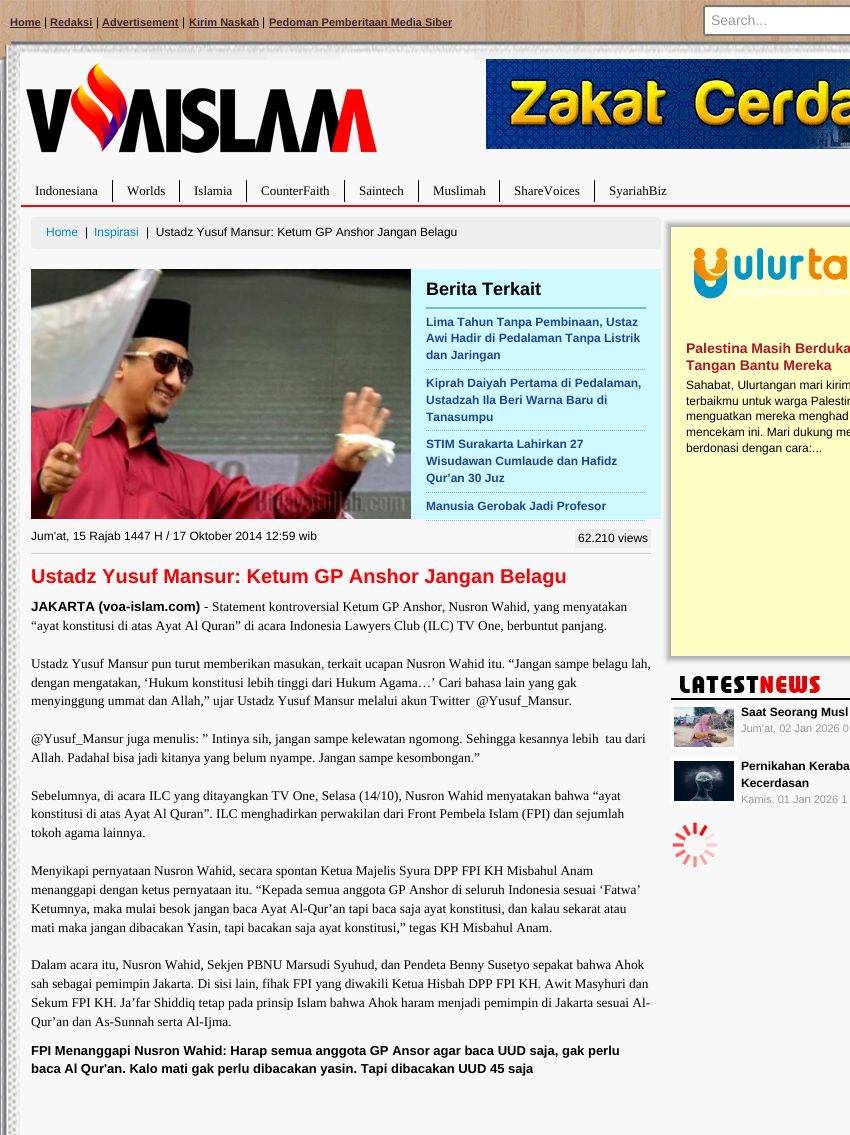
#include <cairo.h>
#include <math.h>
#include <stddef.h>

typedef struct { const char *family; double size; int italic, bold; unsigned color; } style_t;
static cairo_t *ctx;

static void ink(unsigned color) {
    cairo_set_source_rgb(ctx, (color >> 16) / 255.0, (color >> 8 & 255) / 255.0, (color & 255) / 255.0);
}

static void write(double x, double y, const char *s, const style_t *st) {
    cairo_select_font_face(ctx, st->family, st->italic ? CAIRO_FONT_SLANT_ITALIC : CAIRO_FONT_SLANT_NORMAL,
        st->bold ? CAIRO_FONT_WEIGHT_BOLD : CAIRO_FONT_WEIGHT_NORMAL);
    cairo_set_font_size(ctx, st->size);
    ink(st->color);
    cairo_move_to(ctx, x, y);
    cairo_show_text(ctx, s);
}

static void block(double x, double y, double w, double h, unsigned color) {
    ink(color);
    cairo_rectangle(ctx, x, y, w, h);
    cairo_fill(ctx);
}

static void round_path(double x, double y, double w, double h, double r) {
    cairo_new_sub_path(ctx);
    cairo_arc(ctx, x + w - r, y + h - r, r, 0, M_PI / 2);
    cairo_arc(ctx, x + r, y + h - r, r, M_PI / 2, M_PI);
    cairo_arc(ctx, x + r, y + r, r, M_PI, 1.5 * M_PI);
    cairo_arc(ctx, x + w - r, y + r, r, 1.5 * M_PI, 2 * M_PI);
    cairo_close_path(ctx);
}

static void blur_box(double x, double y, double w, double h, double r, double blur, double alpha) {
    cairo_push_group_with_content(ctx, CAIRO_CONTENT_ALPHA);
    cairo_set_operator(ctx, CAIRO_OPERATOR_SOURCE);
    for (int i = 15; i >= -15 && fmin(w, h) + blur * i / 3 > 0; i -= 2) {
        double e = blur * i / 6;
        cairo_set_source_rgba(ctx, 0, 0, 0, alpha * erfc((i - 1) / 8.5) / 2);
        round_path(x - e, y - e, w + 2 * e, h + 2 * e, fmax(0, fmin(r + e + blur * .6, fmin(w, h) / 2 + e)));
        cairo_fill(ctx);
    }
    cairo_pattern_t *soft = cairo_pop_group(ctx);
    cairo_mask(ctx, soft);
    cairo_pattern_destroy(soft);
}

static void paste(const char *path, double x, double y, double w, double h) {
    cairo_surface_t *image = cairo_image_surface_create_from_png(path);
    cairo_save(ctx);
    cairo_set_source_surface(ctx, image, x, y);
    cairo_rectangle(ctx, x, y, w, h);
    cairo_fill(ctx);
    cairo_restore(ctx);
    cairo_surface_destroy(image);
}

static const style_t s1 = {"Liberation Sans", 11, 0, 1, 0x43242a};
static const style_t s2 = {"Liberation Sans", 12, 0, 0, 0x000000};
static const style_t s3 = {"Liberation Sans", 14, 0, 0, 0x999999};
static const style_t s4 = {"Liberation Serif", 13, 0, 0, 0x000000};
static const style_t s5 = {"Liberation Sans", 12, 0, 0, 0x0088cc};
static const style_t s6 = {"Liberation Sans", 18, 0, 1, 0x000000};
static const style_t s7 = {"Liberation Sans", 12, 0, 1, 0x1b459a};
static const style_t s8 = {"Liberation Sans", 20, 0, 1, 0xfd0003};
static const style_t s9 = {"Liberation Sans", 13.35, 0, 1, 0x000000};
static const style_t s10 = {"Liberation Sans", 13.35, 0, 0, 0x000000};
static const style_t s11 = {"Liberation Serif", 13.35, 0, 0, 0x000000};
static const style_t s12 = {"Liberation Sans", 13, 0, 1, 0x000000};
static const style_t s13 = {"Liberation Sans", 14, 0, 1, 0xb41624};
static const style_t s14 = {"Liberation Sans", 12, 0, 1, 0x000000};
static const style_t s15 = {"Liberation Sans", 11, 0, 0, 0x999999};

int main(void) {
    cairo_surface_t *surface = cairo_image_surface_create(CAIRO_FORMAT_RGB24, 850, 1135);
    ctx = cairo_create(surface);
    cairo_font_options_t *options = cairo_font_options_create();
    cairo_font_options_set_hint_metrics(options, CAIRO_HINT_METRICS_OFF);
    cairo_font_options_set_hint_style(options, CAIRO_HINT_STYLE_NONE);
    cairo_set_font_options(ctx, options);
    cairo_set_miter_limit(ctx, 4);
    ink(0xffffff);
    cairo_paint(ctx);
    paste("pic1.png", 0, 0, 850, 41);
    write(10, 26, "Home", &s1);
    block(10, 27, 31, 1, 0x43242a);
    write(44, 26, "|", &s2);
    write(50, 26, "Redaksi", &s1);
    block(50, 27, 43, 1, 0x43242a);
    write(96, 26, "|", &s2);
    write(102, 26, "Advertisement", &s1);
    block(102, 27, 77, 1, 0x43242a);
    write(182, 26, "|", &s2);
    write(189, 26, "Kirim Naskah", &s1);
    block(189, 27, 70, 1, 0x43242a);
    write(262, 26, "|", &s2);
    write(269, 26, "Pedoman Pemberitaan Media Siber", &s1);
    block(269, 27, 183, 1, 0x43242a);
    ink(0xffffff);
    round_path(704, 6, 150, 29, 2);
    cairo_fill_preserve(ctx);
    ink(0x777777);
    cairo_stroke(ctx);
    ink(0xececec);
    cairo_new_path(ctx);
    cairo_move_to(ctx, 709, 8);
    cairo_line_to(ctx, 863, 8);
    cairo_curve_to(ctx, 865, 8, 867, 10, 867, 12);
    cairo_curve_to(ctx, 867, 10, 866, 8, 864, 7);
    cairo_line_to(ctx, 708, 7);
    cairo_curve_to(ctx, 706, 8, 705, 10, 705, 12);
    cairo_curve_to(ctx, 705, 10, 707, 8, 709, 8);
    cairo_close_path(ctx);
    cairo_fill(ctx);
    write(711, 25, "Search...", &s3);
    paste("pic2.png", 0, 91, 850, 1044);
    paste("pic3.png", 0, 41, 850, 50);
    paste("pic4.png", 26, 62, 351, 91);
    paste("pic5.png", 486, 59, 364, 90);
    block(21, 205, 829, 2, 0xff0000);
    block(112, 180, 1, 22, 0x000000);
    write(35, 195, "Indonesiana", &s4);
    block(179, 180, 1, 22, 0x000000);
    write(127, 195, "Worlds", &s4);
    block(246, 180, 1, 22, 0x000000);
    write(194, 195, "Islamia", &s4);
    block(344, 180, 1, 22, 0x000000);
    write(261, 195, "CounterFaith", &s4);
    block(418, 180, 1, 22, 0x000000);
    write(359, 195, "Saintech", &s4);
    block(499, 180, 1, 22, 0x000000);
    write(433, 195, "Muslimah", &s4);
    block(594, 180, 1, 22, 0x000000);
    write(514, 195, "ShareVoices", &s4);
    write(609, 195, "SyariahBiz", &s4);
    ink(0xeeeeee);
    round_path(31, 217, 630, 32, 4);
    cairo_fill(ctx);
    write(46, 236, "Home", &s5);
    write(85, 236, "|", &s2);
    write(94, 236, "Inspirasi", &s5);
    write(146, 236, "|  Ustadz Yusuf Mansur: Ketum GP Anshor Jangan Belagu", &s2);
    paste("pic6.png", 31, 269, 380, 250);
    block(411, 269, 250, 250, 0xcef9ff);
    block(426, 307, 220, 2, 0x79bfc4);
    write(426, 295, "Berita Terkait", &s6);
    cairo_new_path(ctx);
    cairo_move_to(ctx, 426, 369.5);
    cairo_line_to(ctx, 646, 369.5);
    ink(0x79bfc4);
    cairo_set_line_width(ctx, 1);
    cairo_set_dash(ctx, (double[]){1, 1}, 2, 0);
    cairo_stroke(ctx);
    write(426, 326, "Lima Tahun Tanpa Pembinaan, Ustaz", &s7);
    write(426, 342, "Awi Hadir di Pedalaman Tanpa Listrik", &s7);
    write(426, 359, "dan Jaringan", &s7);
    cairo_new_path(ctx);
    cairo_move_to(ctx, 426, 430.5);
    cairo_line_to(ctx, 646, 430.5);
    ink(0x79bfc4);
    cairo_stroke(ctx);
    write(426, 387, "Kiprah Daiyah Pertama di Pedalaman,", &s7);
    write(426, 404, "Ustadzah Ila Beri Warna Baru di", &s7);
    write(426, 421, "Tanasumpu", &s7);
    cairo_new_path(ctx);
    cairo_move_to(ctx, 426, 492.5);
    cairo_line_to(ctx, 646, 492.5);
    ink(0x79bfc4);
    cairo_stroke(ctx);
    write(426, 448, "STIM Surakarta Lahirkan 27", &s7);
    write(426, 465, "Wisudawan Cumlaude dan Hafidz", &s7);
    write(426, 482, "Qur’an 30 Juz", &s7);
    cairo_new_path(ctx);
    cairo_move_to(ctx, 426, 520.5);
    cairo_line_to(ctx, 646, 520.5);
    ink(0x79bfc4);
    cairo_stroke(ctx);
    write(426, 510, "Manusia Gerobak Jadi Profesor", &s7);
    write(31, 540, "Jum'at, 15 Rajab 1447 H / 17 Oktober 2014 12:59 wib", &s2);
    block(575, 529, 76, 19, 0xededed);
    write(578, 542, "62.210 views", &s2);
    block(31, 553, 620, 1, 0xcccccc);
    write(31, 583, "Ustadz Yusuf Mansur: Ketum GP Anshor Jangan Belagu", &s8);
    write(31, 611, "JAKARTA (voa-islam.com)", &s9);
    write(204, 611, "-", &s10);
    write(212, 611, "Statement kontroversial Ketum GP Anshor, Nusron Wahid, yang menyatakan", &s11);
    write(31, 630, "“ayat konstitusi di atas Ayat Al Quran” di acara Indonesia Lawyers Club (ILC) TV One, berbuntut panjang.", &s11);
    write(31, 668, "Ustadz Yusuf Mansur pun turut memberikan masukan, terkait ucapan Nusron Wahid itu. “Jangan sampe belagu lah,", &s11);
    write(31, 687, "dengan mengatakan, ‘Hukum konstitusi lebih tinggi dari Hukum Agama…’ Cari bahasa lain yang gak", &s11);
    write(31, 705, "menyinggung ummat dan Allah,” ujar Ustadz Yusuf Mansur melalui akun Twitter  @Yusuf_Mansur.", &s11);
    write(31, 743, "@Yusuf_Mansur juga menulis: ” Intinya sih, jangan sampe kelewatan ngomong. Sehingga kesannya lebih  tau dari", &s11);
    write(31, 762, "Allah. Padahal bisa jadi kitanya yang belum nyampe. Jangan sampe kesombongan.”", &s11);
    write(31, 800, "Sebelumnya, di acara ILC yang ditayangkan TV One, Selasa (14/10), Nusron Wahid menyatakan bahwa “ayat", &s11);
    write(31, 818, "konstitusi di atas Ayat Al Quran”. ILC menghadirkan perwakilan dari Front Pembela Islam (FPI) dan sejumlah", &s11);
    write(31, 837, "tokoh agama lainnya.", &s11);
    write(31, 875, "Menyikapi pernyataan Nusron Wahid, secara spontan Ketua Majelis Syura DPP FPI KH Misbahul Anam", &s11);
    write(31, 894, "menanggapi dengan ketus pernyataan itu. “Kepada semua anggota GP Anshor di seluruh Indonesia sesuai ‘Fatwa’", &s11);
    write(31, 913, "Ketumnya, maka mulai besok jangan baca Ayat Al-Qur’an tapi baca saja ayat konstitusi, dan kalau sekarat atau", &s11);
    write(31, 932, "mati maka jangan dibacakan Yasin, tapi bacakan saja ayat konstitusi,” tegas KH Misbahul Anam.", &s11);
    write(31, 969, "Dalam acara itu, Nusron Wahid, Sekjen PBNU Marsudi Syuhud, dan Pendeta Benny Susetyo sepakat bahwa Ahok", &s11);
    write(31, 988, "sah sebagai pemimpin Jakarta. Di sisi lain, fihak FPI yang diwakili Ketua Hisbah DPP FPI KH. Awit Masyhuri dan", &s11);
    write(31, 1007, "Sekum FPI KH. Ja’far Shiddiq tetap pada prinsip Islam bahwa Ahok haram menjadi pemimpin di Jakarta sesuai Al-", &s11);
    write(31, 1026, "Qur’an dan As-Sunnah serta Al-Ijma.", &s11);
    write(31, 1055, "FPI Menanggapi Nusron Wahid: Harap semua anggota GP Ansor agar baca UUD saja, gak perlu", &s12);
    write(31, 1073, "baca Al Qur'an. Kalo mati gak perlu dibacakan yasin. Tapi dibacakan UUD 45 saja", &s12);
    ink(0xaaaaaa);
    blur_box(667, 223, 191, 437, 0, 2.5, 1);
    block(671, 227, 179, 429, 0xfffec5);
    paste("pic7.png", 693, 247, 157, 52);
    write(686, 353, "Palestina Masih Berduka", &s13);
    write(686, 370, "Tangan Bantu Mereka", &s13);
    write(686, 389, "Sahabat, Ulurtangan mari kirim", &s2);
    write(686, 405, "terbaikmu untuk warga Palestin", &s2);
    write(686, 420, "menguatkan mereka menghad", &s2);
    write(686, 436, "mencekam ini. Mari dukung me", &s2);
    write(686, 452, "berdonasi dengan cara:...", &s2);
    paste("pic8.png", 680, 676, 140, 17);
    block(671, 698, 179, 2, 0x000000);
    block(671, 704, 66, 46, 0xffffff);
    paste("pic9.png", 674, 707, 60, 40);
    write(741, 716, "Saat Seorang Musl", &s14);
    write(741, 732, "Jum'at, 02 Jan 2026 0", &s15);
    block(671, 758, 66, 46, 0xffffff);
    paste("pic10.png", 674, 761, 60, 40);
    write(741, 770, "Pernikahan Keraba", &s14);
    write(741, 787, "Kecerdasan", &s14);
    write(741, 803, "Kamis, 01 Jan 2026 1", &s15);
    paste("pic11.png", 672, 822, 46, 46);
    cairo_surface_write_to_png(surface, "screenshot.png");
    cairo_font_options_destroy(options);
    cairo_destroy(ctx);
    cairo_surface_destroy(surface);
    return 0;
}
